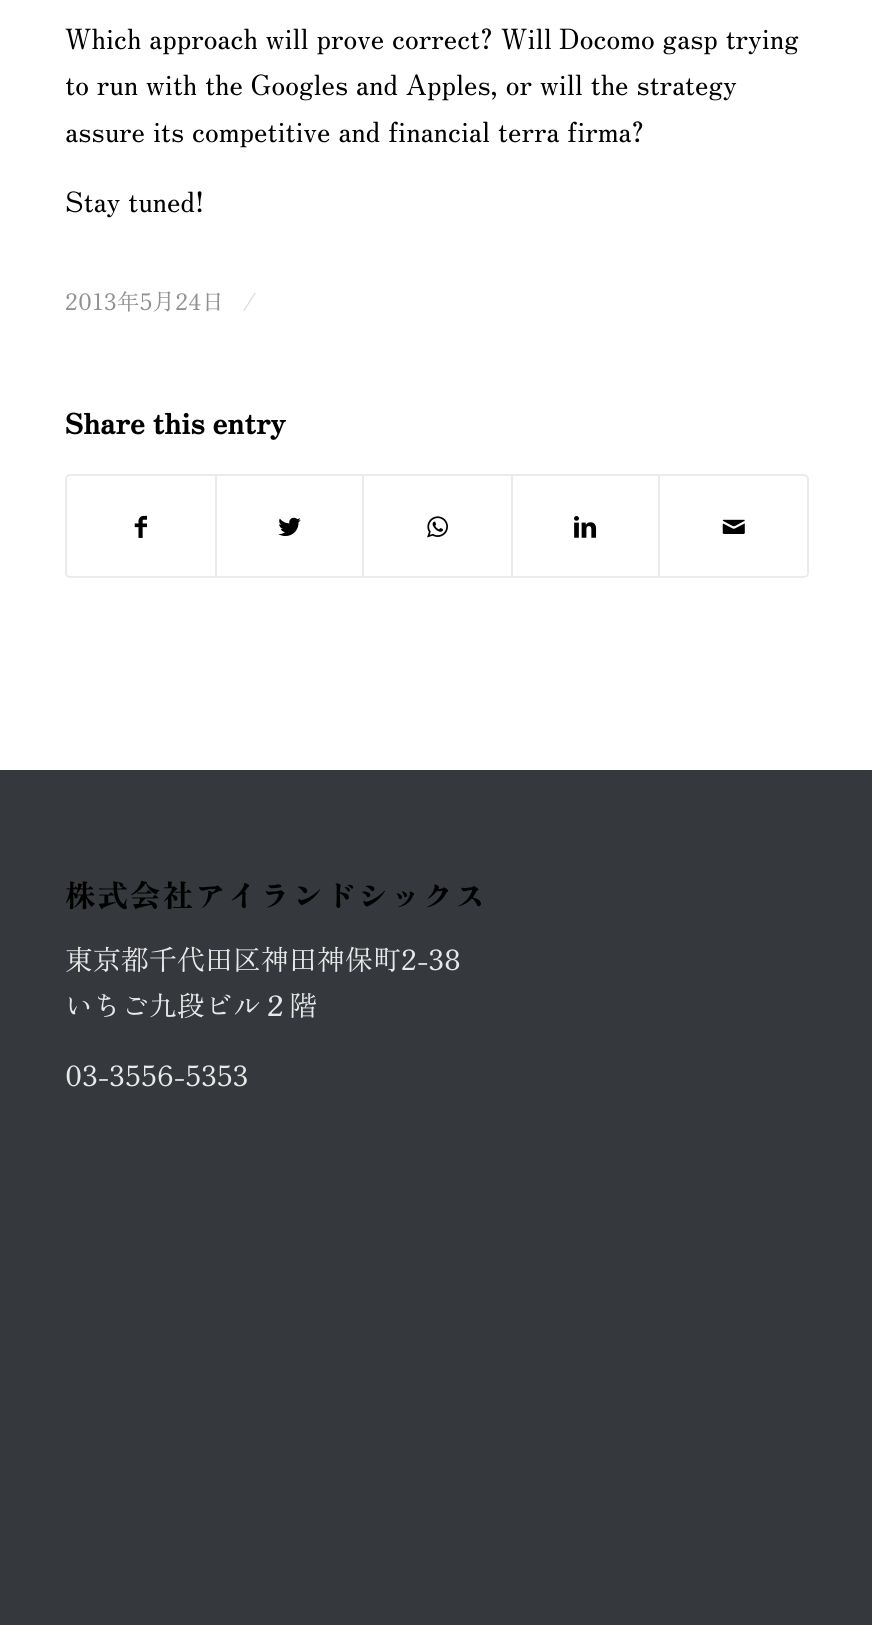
#include <cairo.h>
#include <math.h>
#include <stddef.h>

typedef struct { const char *family; double size; int italic, bold; unsigned color; } style_t;
static cairo_t *ctx;

static void ink(unsigned color) {
    cairo_set_source_rgb(ctx, (color >> 16) / 255.0, (color >> 8 & 255) / 255.0, (color & 255) / 255.0);
}

static void write(double x, double y, const char *s, const style_t *st) {
    cairo_select_font_face(ctx, st->family, st->italic ? CAIRO_FONT_SLANT_ITALIC : CAIRO_FONT_SLANT_NORMAL,
        st->bold ? CAIRO_FONT_WEIGHT_BOLD : CAIRO_FONT_WEIGHT_NORMAL);
    cairo_set_font_size(ctx, st->size);
    ink(st->color);
    cairo_move_to(ctx, x, y);
    cairo_show_text(ctx, s);
}

static void write_spaced(double x, double y, const char *s, double letter, double word) {
    cairo_move_to(ctx, x, y);
    while (*s) {
        char ch[5] = {0};
        int n = 0;
        do ch[n++] = *s++; while ((*s & 0xC0) == 0x80);
        cairo_show_text(ctx, ch);
        cairo_rel_move_to(ctx, letter + word * (*ch == ' '), 0);
    }
}

static void block(double x, double y, double w, double h, unsigned color) {
    ink(color);
    cairo_rectangle(ctx, x, y, w, h);
    cairo_fill(ctx);
}

static void round_path(double x, double y, double w, double h, double r) {
    cairo_new_sub_path(ctx);
    cairo_arc(ctx, x + w - r, y + h - r, r, 0, M_PI / 2);
    cairo_arc(ctx, x + r, y + h - r, r, M_PI / 2, M_PI);
    cairo_arc(ctx, x + r, y + r, r, M_PI, 1.5 * M_PI);
    cairo_arc(ctx, x + w - r, y + r, r, 1.5 * M_PI, 2 * M_PI);
    cairo_close_path(ctx);
}

static void paste(const char *path, double x, double y, double w, double h) {
    cairo_surface_t *image = cairo_image_surface_create_from_png(path);
    cairo_save(ctx);
    cairo_set_source_surface(ctx, image, x, y);
    cairo_rectangle(ctx, x, y, w, h);
    cairo_fill(ctx);
    cairo_restore(ctx);
    cairo_surface_destroy(image);
}

static const style_t s1 = {"Zen Old Mincho", 28, 0, 0, 0x000000};
static const style_t s2 = {"Zen Old Mincho", 22.75, 0, 0, 0x919191};
static const style_t s3 = {"Zen Old Mincho", 25, 0, 0, 0xdedede};
static const style_t s4 = {"Zen Antique Soft", 28, 0, 1, 0x000000};
static const style_t s5 = {"Zen Old Mincho", 28, 0, 0, 0xe8e8e8};

int main(void) {
    cairo_surface_t *surface = cairo_image_surface_create(CAIRO_FORMAT_RGB24, 872, 1625);
    ctx = cairo_create(surface);
    cairo_font_options_t *options = cairo_font_options_create();
    cairo_font_options_set_hint_metrics(options, CAIRO_HINT_METRICS_OFF);
    cairo_font_options_set_hint_style(options, CAIRO_HINT_STYLE_NONE);
    cairo_set_font_options(ctx, options);
    cairo_set_miter_limit(ctx, 4);
    ink(0xffffff);
    cairo_paint(ctx);
    write(65, 49, "Which approach will prove correct? Will Docomo gasp trying", &s1);
    write(65, 95, "to run with the Googles and Apples, or will the strategy", &s1);
    write(65, 142, "assure its competitive and financial terra firma?", &s1);
    write(65, 212, "Stay tuned!", &s1);
    write(65, 310, "2013年5月24日", &s2);
    write(242, 311, "/", &s3);
    write(65, 434, "Share this entry", &s4);
    round_path(66, 475, 742, 102, 4);
    ink(0xebebeb);
    cairo_stroke(ctx);
    paste("pic1.png", 134, 515, 13, 23);
    block(215, 476, 2, 100, 0xebebeb);
    paste("pic2.png", 278, 517, 23, 19);
    block(362, 476, 2, 100, 0xebebeb);
    paste("pic3.png", 427, 516, 21, 22);
    block(511, 476, 2, 100, 0xebebeb);
    paste("pic4.png", 574, 516, 23, 22);
    block(658, 476, 2, 100, 0xebebeb);
    paste("pic5.png", 722, 519, 23, 15);
    block(0, 770, 872, 855, 0x35383c);
    cairo_select_font_face(ctx, "Zen Antique Soft", CAIRO_FONT_SLANT_NORMAL, CAIRO_FONT_WEIGHT_NORMAL);
    cairo_set_font_size(ctx, 30.75);
    ink(0x000000);
    write_spaced(65, 907, "株式会社アイランドシックス", 1.75, 0);
    write(65, 970, "東京都千代田区神田神保町2-38", &s5);
    write(65, 1016, "いちご九段ビル２階", &s5);
    write(65, 1086, "03-3556-5353", &s5);
    cairo_surface_write_to_png(surface, "screenshot.png");
    cairo_font_options_destroy(options);
    cairo_destroy(ctx);
    cairo_surface_destroy(surface);
    return 0;
}
